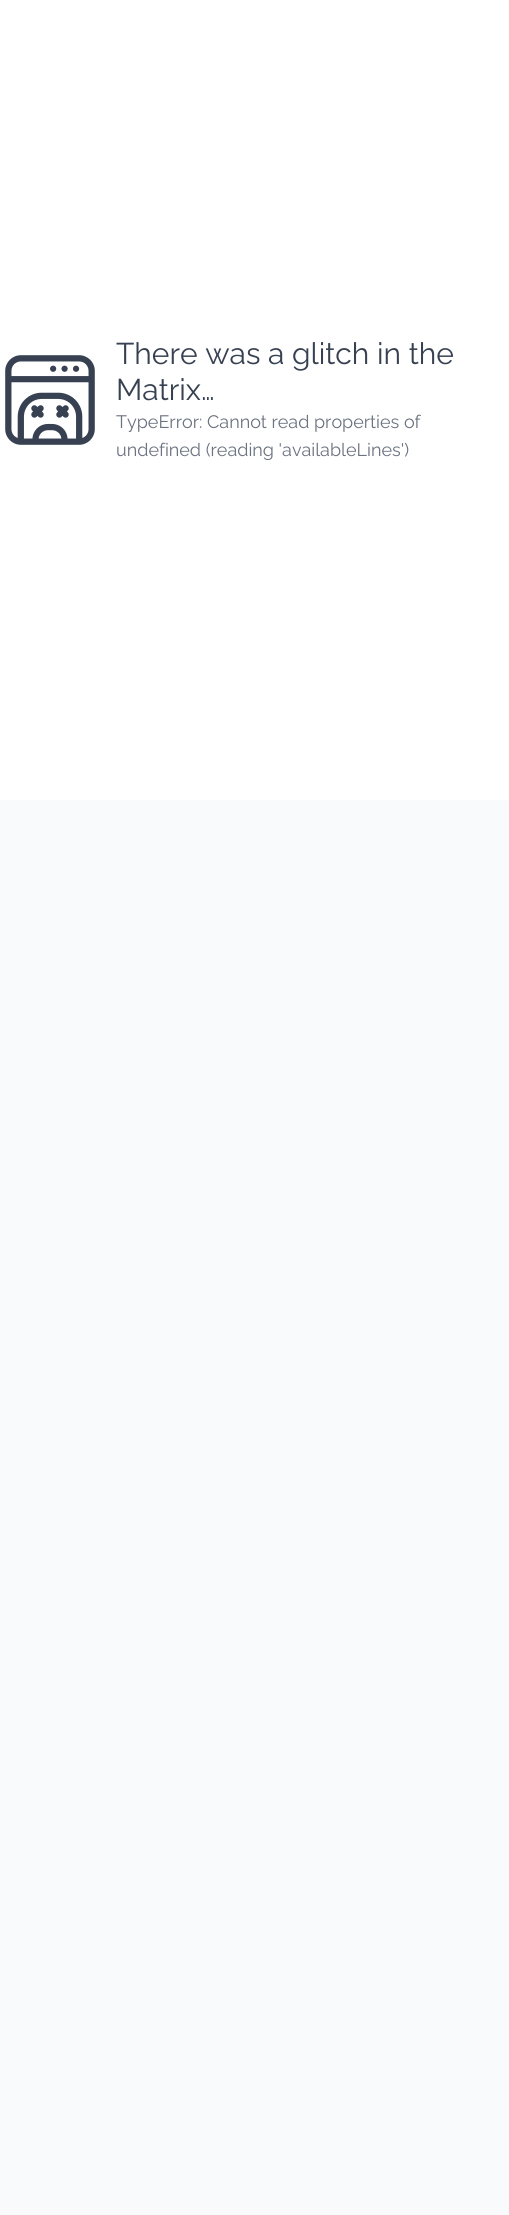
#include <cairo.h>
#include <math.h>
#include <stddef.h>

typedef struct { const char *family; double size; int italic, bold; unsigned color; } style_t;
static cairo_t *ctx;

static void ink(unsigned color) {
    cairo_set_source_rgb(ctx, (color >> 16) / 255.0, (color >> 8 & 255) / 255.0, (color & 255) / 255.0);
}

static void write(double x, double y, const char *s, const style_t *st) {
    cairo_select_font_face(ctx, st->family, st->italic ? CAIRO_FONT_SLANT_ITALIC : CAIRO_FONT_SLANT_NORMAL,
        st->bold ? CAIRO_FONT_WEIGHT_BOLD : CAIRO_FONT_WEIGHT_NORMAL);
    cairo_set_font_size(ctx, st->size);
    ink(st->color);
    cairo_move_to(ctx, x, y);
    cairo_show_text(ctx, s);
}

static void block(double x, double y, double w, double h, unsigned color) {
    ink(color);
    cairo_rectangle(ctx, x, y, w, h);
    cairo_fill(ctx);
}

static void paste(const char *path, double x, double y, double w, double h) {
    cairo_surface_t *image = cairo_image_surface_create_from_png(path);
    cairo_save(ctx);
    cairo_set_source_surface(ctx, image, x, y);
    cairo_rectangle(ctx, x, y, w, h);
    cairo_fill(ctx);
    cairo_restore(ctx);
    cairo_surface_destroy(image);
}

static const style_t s1 = {"Raleway", 30, 0, 0, 0x374151};
static const style_t s2 = {"Raleway", 18, 0, 0, 0x6b7280};

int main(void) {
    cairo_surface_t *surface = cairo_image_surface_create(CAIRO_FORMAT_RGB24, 509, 2215);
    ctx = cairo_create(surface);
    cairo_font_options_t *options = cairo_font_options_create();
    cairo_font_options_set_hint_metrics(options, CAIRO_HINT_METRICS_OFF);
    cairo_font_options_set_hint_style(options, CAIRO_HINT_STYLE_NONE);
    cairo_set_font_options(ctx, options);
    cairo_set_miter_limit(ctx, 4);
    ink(0xf9fafb);
    cairo_paint(ctx);
    block(0, 0, 509, 800, 0xffffff);
    paste("pic1.png", 5, 355, 90, 90);
    write(116, 364, "There was a glitch in the", &s1);
    write(116, 400, "Matrix…", &s1);
    write(116, 428, "TypeError: Cannot read properties of", &s2);
    write(116, 456, "undefined (reading 'availableLines')", &s2);
    cairo_surface_write_to_png(surface, "screenshot.png");
    cairo_font_options_destroy(options);
    cairo_destroy(ctx);
    cairo_surface_destroy(surface);
    return 0;
}
